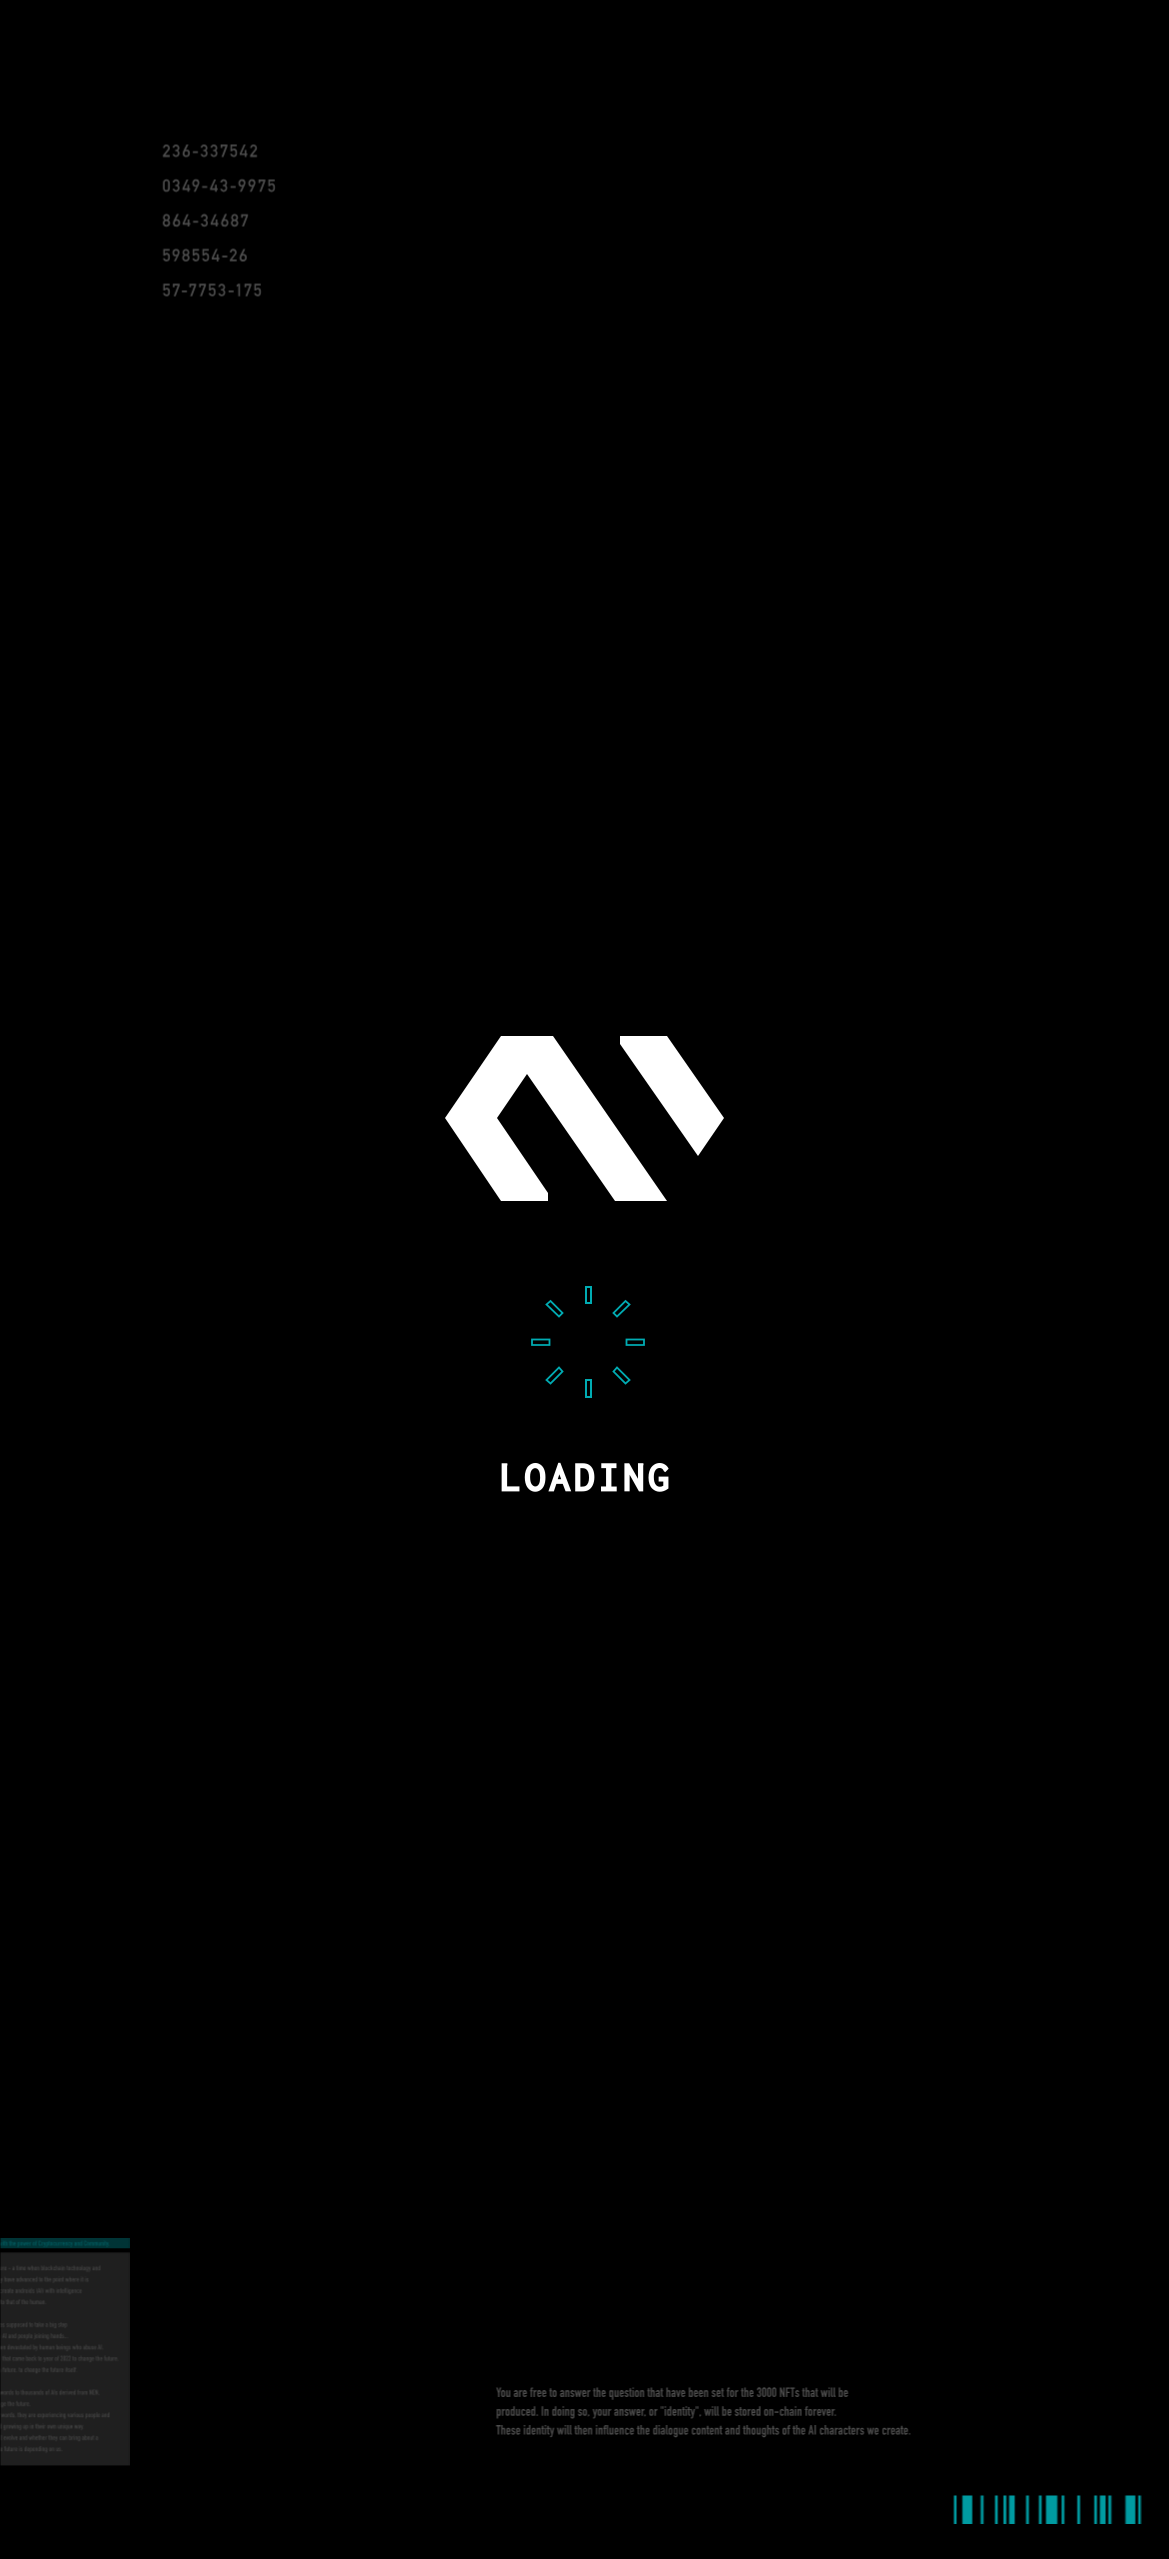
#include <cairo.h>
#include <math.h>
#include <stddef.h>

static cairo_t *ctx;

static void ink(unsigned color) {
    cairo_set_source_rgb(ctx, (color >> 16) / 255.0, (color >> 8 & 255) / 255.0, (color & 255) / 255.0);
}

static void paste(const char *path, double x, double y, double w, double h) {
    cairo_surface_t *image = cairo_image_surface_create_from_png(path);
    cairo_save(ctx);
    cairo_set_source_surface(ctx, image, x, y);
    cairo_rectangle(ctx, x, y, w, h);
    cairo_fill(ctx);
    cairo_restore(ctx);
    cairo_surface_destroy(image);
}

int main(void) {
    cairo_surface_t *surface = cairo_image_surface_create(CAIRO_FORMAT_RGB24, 1169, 2559);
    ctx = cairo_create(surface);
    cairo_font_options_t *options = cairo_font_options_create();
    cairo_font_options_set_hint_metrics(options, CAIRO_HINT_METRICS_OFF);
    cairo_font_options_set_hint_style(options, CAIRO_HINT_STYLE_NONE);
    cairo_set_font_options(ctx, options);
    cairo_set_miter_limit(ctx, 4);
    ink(0x000000);
    cairo_paint(ctx);
    paste("pic1.png", 162, 144, 114, 153);
    paste("pic2.png", 0, 2238, 130, 228);
    paste("pic3.png", 495, 2387, 416, 51);
    paste("pic4.png", 953, 2495, 189, 29);
    ink(0xffffff);
    cairo_new_path(ctx);
    cairo_move_to(ctx, 724, 1118);
    cairo_line_to(ctx, 667, 1036);
    cairo_line_to(ctx, 620, 1036);
    cairo_line_to(ctx, 620, 1044);
    cairo_line_to(ctx, 698, 1156);
    cairo_close_path(ctx);
    cairo_fill(ctx);
    cairo_new_path(ctx);
    cairo_move_to(ctx, 548, 1201);
    cairo_line_to(ctx, 548, 1193);
    cairo_line_to(ctx, 497, 1118);
    cairo_line_to(ctx, 527, 1074);
    cairo_line_to(ctx, 615, 1201);
    cairo_line_to(ctx, 667, 1201);
    cairo_line_to(ctx, 553, 1036);
    cairo_line_to(ctx, 501, 1036);
    cairo_line_to(ctx, 445, 1118);
    cairo_line_to(ctx, 501, 1201);
    cairo_close_path(ctx);
    cairo_fill(ctx);
    cairo_rectangle(ctx, 586, 1287, 5, 16);
    ink(0x00acb3);
    cairo_stroke(ctx);
    cairo_new_path(ctx);
    cairo_move_to(ctx, 546.5, 1304.5);
    cairo_line_to(ctx, 550.5, 1301);
    cairo_line_to(ctx, 562.5, 1313);
    cairo_line_to(ctx, 559, 1316.5);
    cairo_close_path(ctx);
    cairo_set_line_width(ctx, 1.8);
    cairo_stroke(ctx);
    cairo_new_path(ctx);
    cairo_move_to(ctx, 625.5, 1301);
    cairo_line_to(ctx, 629.5, 1304.5);
    cairo_line_to(ctx, 617, 1316.5);
    cairo_line_to(ctx, 613.5, 1313);
    cairo_close_path(ctx);
    cairo_move_to(ctx, 644, 1339.5);
    cairo_line_to(ctx, 644, 1345);
    cairo_line_to(ctx, 626.5, 1345);
    cairo_line_to(ctx, 626.5, 1339.5);
    cairo_close_path(ctx);
    cairo_stroke(ctx);
    cairo_new_path(ctx);
    cairo_move_to(ctx, 550.5, 1383.5);
    cairo_line_to(ctx, 546.5, 1380);
    cairo_line_to(ctx, 559, 1367.5);
    cairo_line_to(ctx, 562.5, 1371.5);
    cairo_close_path(ctx);
    cairo_move_to(ctx, 532, 1345);
    cairo_line_to(ctx, 532, 1339.5);
    cairo_line_to(ctx, 549.5, 1339.5);
    cairo_line_to(ctx, 549.5, 1345);
    cairo_close_path(ctx);
    cairo_stroke(ctx);
    cairo_new_path(ctx);
    cairo_move_to(ctx, 629.5, 1380);
    cairo_line_to(ctx, 625.5, 1383.5);
    cairo_line_to(ctx, 613.5, 1371.5);
    cairo_line_to(ctx, 617, 1367.5);
    cairo_close_path(ctx);
    cairo_stroke(ctx);
    cairo_rectangle(ctx, 586, 1380, 5, 17);
    cairo_set_line_width(ctx, 2);
    cairo_stroke(ctx);
    paste("pic5.png", 501, 1462, 168, 30);
    cairo_surface_write_to_png(surface, "screenshot.png");
    cairo_font_options_destroy(options);
    cairo_destroy(ctx);
    cairo_surface_destroy(surface);
    return 0;
}
